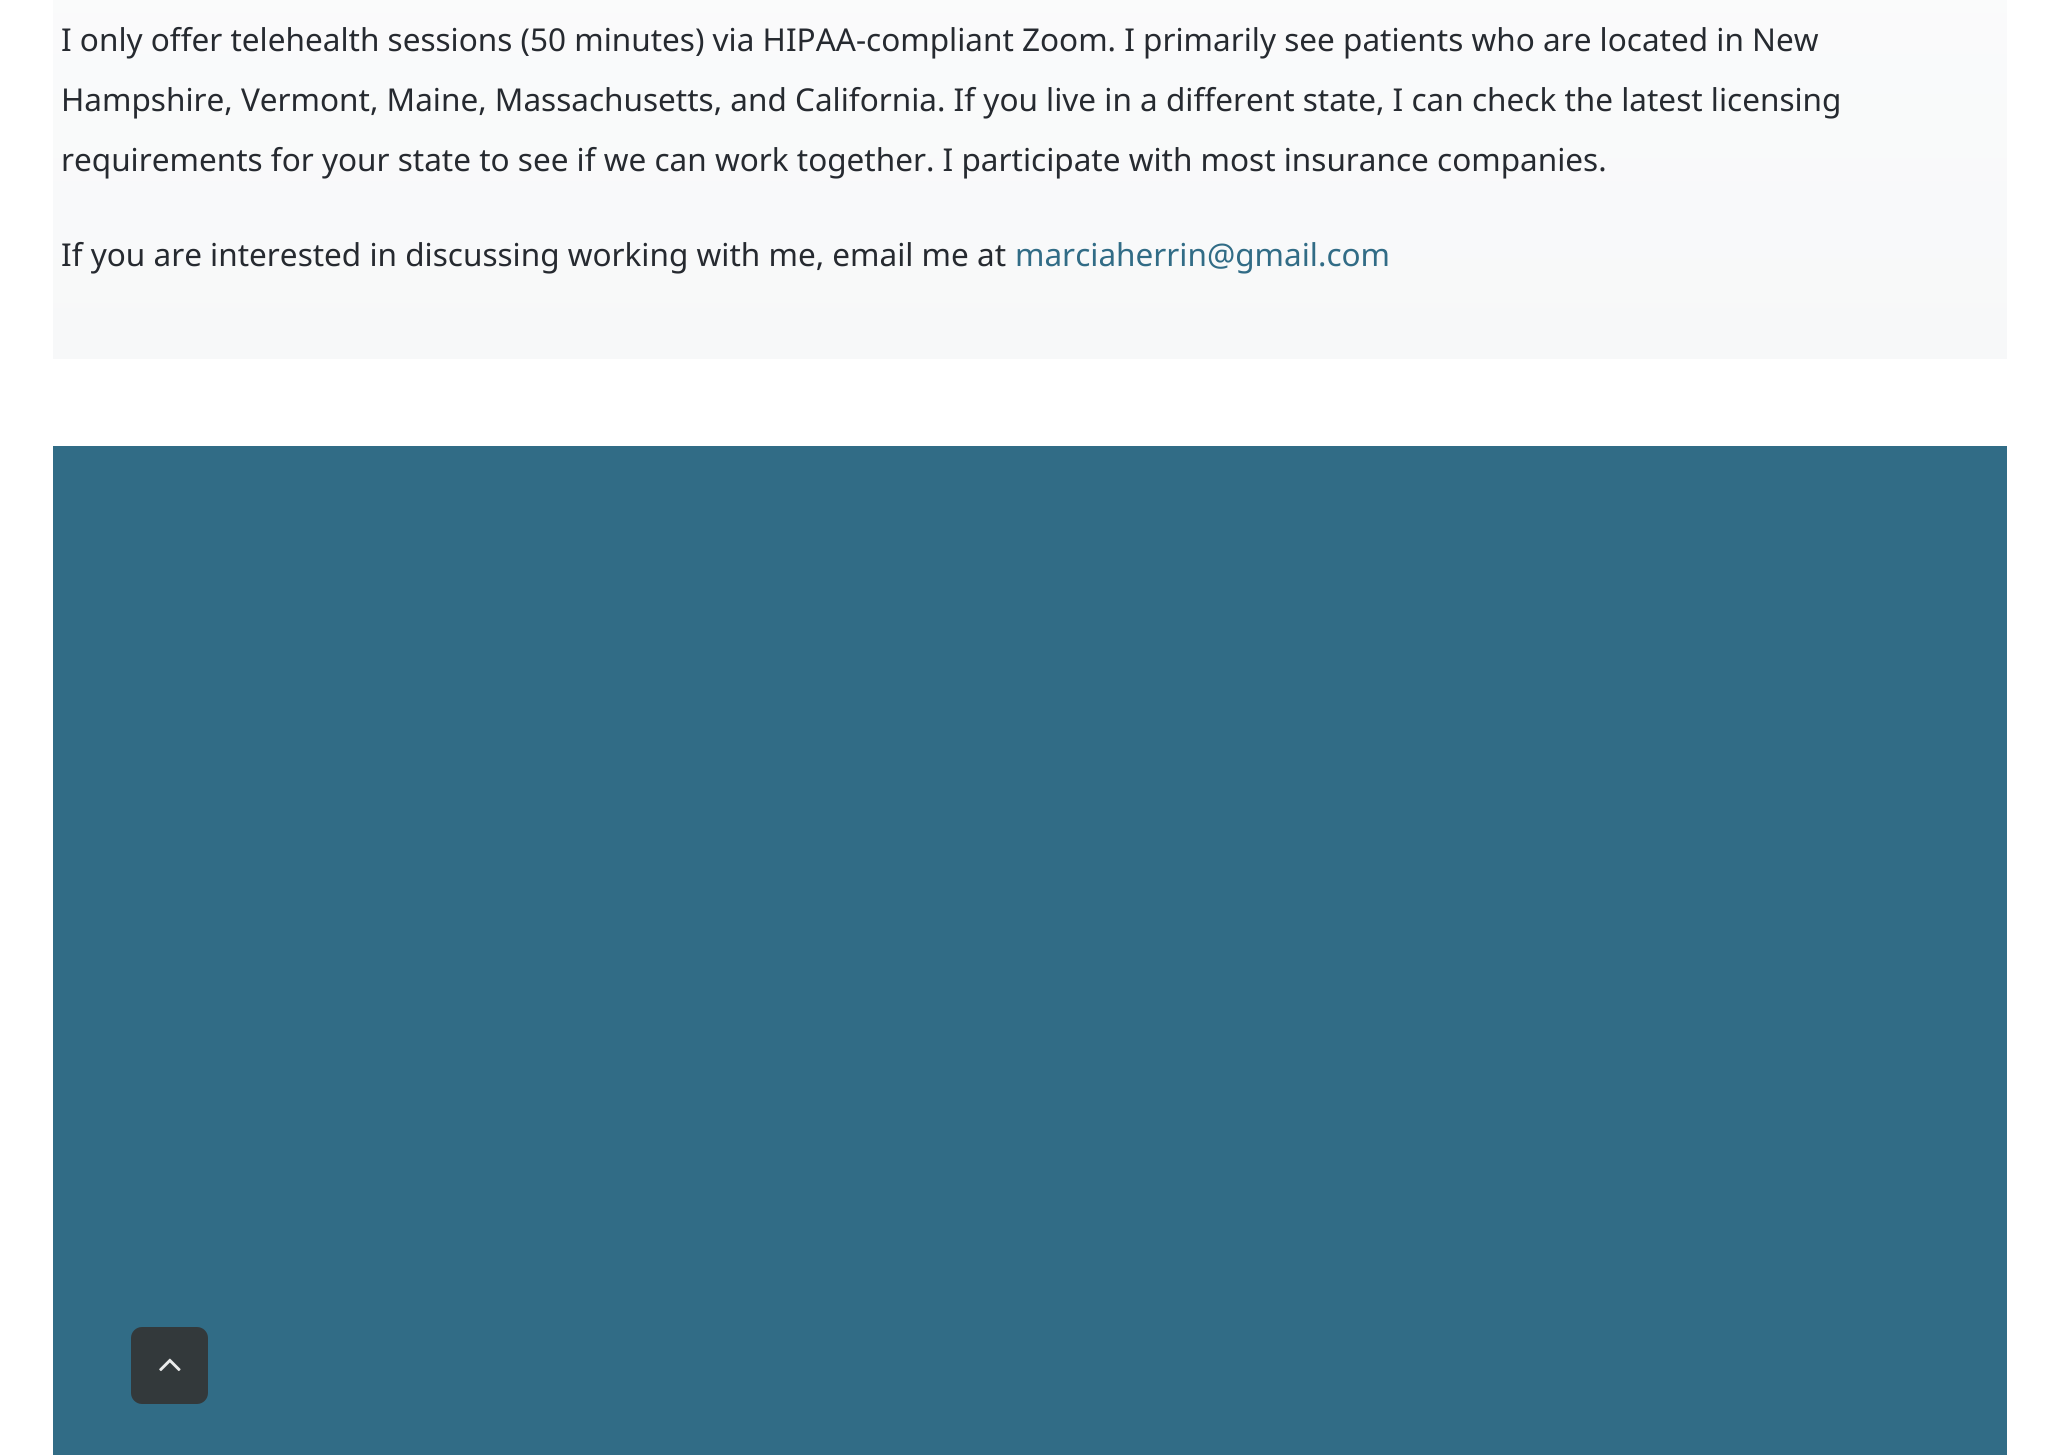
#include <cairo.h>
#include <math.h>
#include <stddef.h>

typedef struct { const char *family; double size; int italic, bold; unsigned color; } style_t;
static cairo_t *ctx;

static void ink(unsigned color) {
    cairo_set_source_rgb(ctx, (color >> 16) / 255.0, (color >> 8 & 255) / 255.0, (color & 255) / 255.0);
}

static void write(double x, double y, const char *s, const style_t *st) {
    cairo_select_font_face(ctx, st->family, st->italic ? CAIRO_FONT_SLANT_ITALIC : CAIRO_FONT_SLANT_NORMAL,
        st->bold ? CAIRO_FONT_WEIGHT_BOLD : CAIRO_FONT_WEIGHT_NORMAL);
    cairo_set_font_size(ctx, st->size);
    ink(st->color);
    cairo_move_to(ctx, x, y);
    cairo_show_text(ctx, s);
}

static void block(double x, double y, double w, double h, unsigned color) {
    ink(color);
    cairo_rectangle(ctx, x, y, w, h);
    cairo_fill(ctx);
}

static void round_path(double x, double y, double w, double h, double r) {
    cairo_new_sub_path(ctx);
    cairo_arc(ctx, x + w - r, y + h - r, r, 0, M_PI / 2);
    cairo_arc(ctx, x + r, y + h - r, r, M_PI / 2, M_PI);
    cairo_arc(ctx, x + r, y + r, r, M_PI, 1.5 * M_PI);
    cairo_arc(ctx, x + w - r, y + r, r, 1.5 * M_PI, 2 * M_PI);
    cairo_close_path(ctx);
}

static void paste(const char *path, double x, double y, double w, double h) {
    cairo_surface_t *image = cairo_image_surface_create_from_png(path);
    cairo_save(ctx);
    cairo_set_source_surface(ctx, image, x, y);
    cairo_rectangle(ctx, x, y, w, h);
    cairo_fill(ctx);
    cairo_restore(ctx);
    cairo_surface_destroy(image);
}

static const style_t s1 = {"Noto Sans", 31.5, 0, 0, 0x262a30};
static const style_t s2 = {"Noto Sans", 31.5, 0, 0, 0x316c86};

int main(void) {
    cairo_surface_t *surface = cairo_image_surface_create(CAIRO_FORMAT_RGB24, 2059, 1455);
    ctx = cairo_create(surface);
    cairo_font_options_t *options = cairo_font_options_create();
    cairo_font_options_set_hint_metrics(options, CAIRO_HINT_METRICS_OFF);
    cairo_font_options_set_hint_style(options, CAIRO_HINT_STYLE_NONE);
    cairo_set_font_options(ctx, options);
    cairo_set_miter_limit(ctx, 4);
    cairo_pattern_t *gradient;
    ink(0xffffff);
    cairo_paint(ctx);
    gradient = cairo_pattern_create_linear(1030, -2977, 1030, 359);
    cairo_pattern_add_color_stop_rgba(gradient, 0.7, 1, 1, 1, 1);
    cairo_pattern_add_color_stop_rgba(gradient, 1, 0.969, 0.973, 0.976, 1);
    cairo_set_source(ctx, gradient);
    cairo_pattern_destroy(gradient);
    cairo_rectangle(ctx, 53, 0, 1954, 359);
    cairo_fill(ctx);
    write(61, 51, "I only offer telehealth sessions (50 minutes) via HIPAA-compliant Zoom. I primarily see patients who are located in New", &s1);
    write(61, 111, "Hampshire, Vermont, Maine, Massachusetts, and California. If you live in a different state, I can check the latest licensing", &s1);
    write(61, 171, "requirements for your state to see if we can work together. I participate with most insurance companies.", &s1);
    write(61, 266, "If you are interested in discussing working with me, email me at", &s1);
    write(1015, 266, "marciaherrin@gmail.com", &s2);
    block(53, 446, 1954, 1009, 0x316c86);
    ink(0x33393b);
    round_path(131, 1327, 77, 77, 11);
    cairo_fill(ctx);
    paste("pic1.png", 159, 1358, 22, 14);
    cairo_surface_write_to_png(surface, "screenshot.png");
    cairo_font_options_destroy(options);
    cairo_destroy(ctx);
    cairo_surface_destroy(surface);
    return 0;
}
